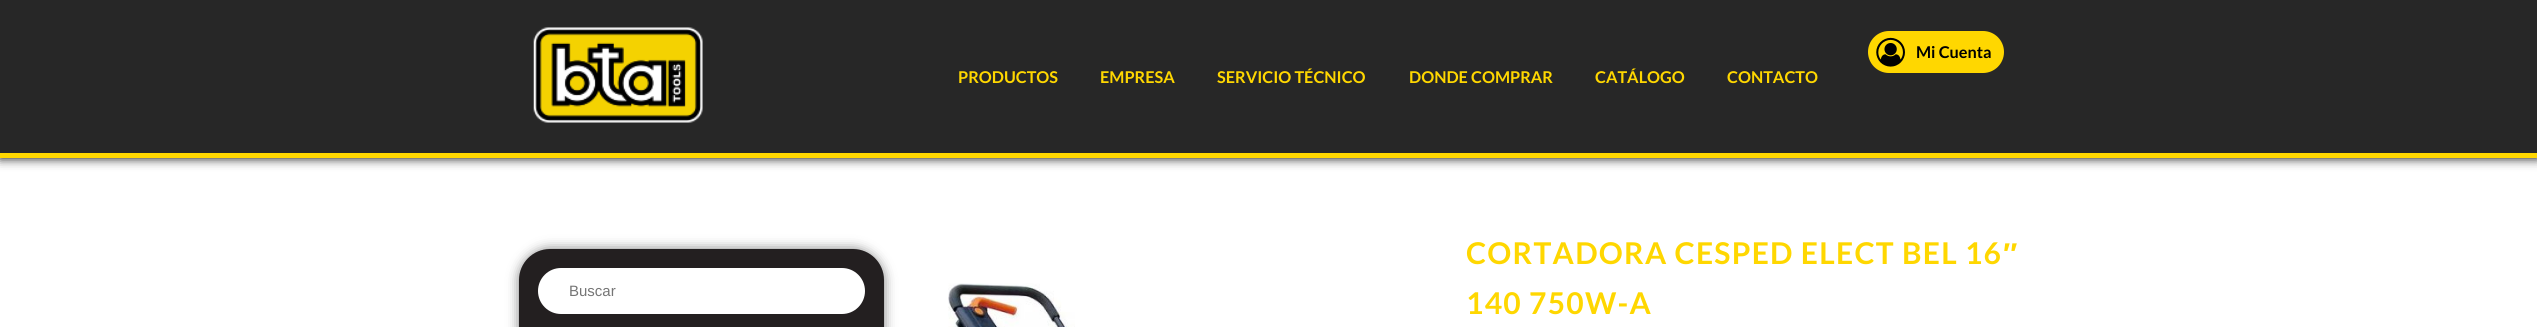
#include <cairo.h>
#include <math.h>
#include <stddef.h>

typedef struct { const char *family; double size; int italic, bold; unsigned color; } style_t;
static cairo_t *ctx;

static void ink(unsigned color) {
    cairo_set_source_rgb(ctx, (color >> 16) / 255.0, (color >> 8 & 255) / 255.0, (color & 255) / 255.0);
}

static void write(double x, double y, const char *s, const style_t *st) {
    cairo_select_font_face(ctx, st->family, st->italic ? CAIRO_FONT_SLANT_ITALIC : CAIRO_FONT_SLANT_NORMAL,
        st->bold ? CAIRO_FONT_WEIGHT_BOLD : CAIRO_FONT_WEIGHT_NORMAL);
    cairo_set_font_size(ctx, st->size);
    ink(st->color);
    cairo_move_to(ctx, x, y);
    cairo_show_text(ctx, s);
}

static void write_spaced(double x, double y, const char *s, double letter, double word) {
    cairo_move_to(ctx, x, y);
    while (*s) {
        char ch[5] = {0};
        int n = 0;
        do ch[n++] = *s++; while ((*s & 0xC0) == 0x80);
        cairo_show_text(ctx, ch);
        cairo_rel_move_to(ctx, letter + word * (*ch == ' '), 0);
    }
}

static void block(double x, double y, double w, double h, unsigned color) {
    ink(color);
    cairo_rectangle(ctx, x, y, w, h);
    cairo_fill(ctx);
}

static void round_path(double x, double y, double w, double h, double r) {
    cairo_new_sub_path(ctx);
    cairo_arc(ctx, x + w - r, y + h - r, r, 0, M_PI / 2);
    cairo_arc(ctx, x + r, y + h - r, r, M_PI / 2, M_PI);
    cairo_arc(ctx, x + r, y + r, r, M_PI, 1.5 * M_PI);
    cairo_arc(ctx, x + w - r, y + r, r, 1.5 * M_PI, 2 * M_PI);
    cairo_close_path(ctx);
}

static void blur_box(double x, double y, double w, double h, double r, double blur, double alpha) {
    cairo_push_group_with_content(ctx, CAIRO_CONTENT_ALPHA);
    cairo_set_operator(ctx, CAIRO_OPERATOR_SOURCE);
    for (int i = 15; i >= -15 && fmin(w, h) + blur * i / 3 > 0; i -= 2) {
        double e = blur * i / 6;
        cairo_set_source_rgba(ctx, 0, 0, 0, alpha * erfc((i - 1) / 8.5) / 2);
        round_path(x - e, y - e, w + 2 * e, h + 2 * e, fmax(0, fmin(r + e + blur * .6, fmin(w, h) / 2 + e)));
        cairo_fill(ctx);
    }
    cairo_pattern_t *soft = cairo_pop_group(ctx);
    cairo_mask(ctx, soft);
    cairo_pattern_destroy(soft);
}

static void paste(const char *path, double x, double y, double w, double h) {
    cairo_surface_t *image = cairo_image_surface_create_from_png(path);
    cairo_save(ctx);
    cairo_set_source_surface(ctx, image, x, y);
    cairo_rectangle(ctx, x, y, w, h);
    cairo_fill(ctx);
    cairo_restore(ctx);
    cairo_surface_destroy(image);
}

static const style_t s1 = {"Lato", 16.25, 0, 1, 0x000000};
static const style_t s2 = {"Lato", 16.25, 0, 1, 0xffd700};
static const style_t s3 = {"Liberation Sans", 15, 0, 0, 0x757575};

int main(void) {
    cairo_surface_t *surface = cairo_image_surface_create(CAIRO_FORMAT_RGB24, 2537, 327);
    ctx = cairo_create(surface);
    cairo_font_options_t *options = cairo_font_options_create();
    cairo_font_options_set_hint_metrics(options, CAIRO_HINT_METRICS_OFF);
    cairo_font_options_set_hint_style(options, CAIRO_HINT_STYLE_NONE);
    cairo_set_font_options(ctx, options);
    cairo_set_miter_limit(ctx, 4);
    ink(0xffffff);
    cairo_paint(ctx);
    ink(0x000000);
    blur_box(0, 0, 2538, 158, 0, 5.5, 1);
    block(0, 153, 2537, 5, 0xffd700);
    block(0, 0, 2537, 153, 0x272727);
    paste("pic1.png", 533, 27, 170, 96);
    ink(0xffd700);
    round_path(1868, 31, 136, 42, 21);
    cairo_fill(ctx);
    paste("pic2.png", 1876, 37, 29, 30);
    write(1916, 58, "Mi Cuenta", &s1);
    write(958, 83, "PRODUCTOS", &s2);
    write(1100, 83, "EMPRESA", &s2);
    write(1217, 83, "SERVICIO TÉCNICO", &s2);
    write(1409, 83, "DONDE COMPRAR", &s2);
    write(1595, 83, "CATÁLOGO", &s2);
    write(1727, 83, "CONTACTO", &s2);
    ink(0x000000);
    blur_box(519, 249, 365, 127, 31, 6, 0.5);
    ink(0x231f20);
    round_path(519, 249, 365, 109, 31);
    cairo_fill(ctx);
    ink(0xffffff);
    round_path(538, 268, 327, 46, 23);
    cairo_fill(ctx);
    write(569, 296, "Buscar", &s3);
    paste("pic3.png", 948, 283, 127, 44);
    cairo_select_font_face(ctx, "Lato", CAIRO_FONT_SLANT_NORMAL, CAIRO_FONT_WEIGHT_BOLD);
    cairo_set_font_size(ctx, 30);
    ink(0xffd700);
    write_spaced(1466, 264, "CORTADORA CESPED ELECT BEL 16", 1.25, 0);
    cairo_select_font_face(ctx, "Liberation Sans", CAIRO_FONT_SLANT_NORMAL, CAIRO_FONT_WEIGHT_BOLD);
    write_spaced(2003, 264, "″", 1.25, 0);
    cairo_select_font_face(ctx, "Lato", CAIRO_FONT_SLANT_NORMAL, CAIRO_FONT_WEIGHT_BOLD);
    write_spaced(1466, 314, "140 750W-A", 1.25, 0);
    cairo_surface_write_to_png(surface, "screenshot.png");
    cairo_font_options_destroy(options);
    cairo_destroy(ctx);
    cairo_surface_destroy(surface);
    return 0;
}
